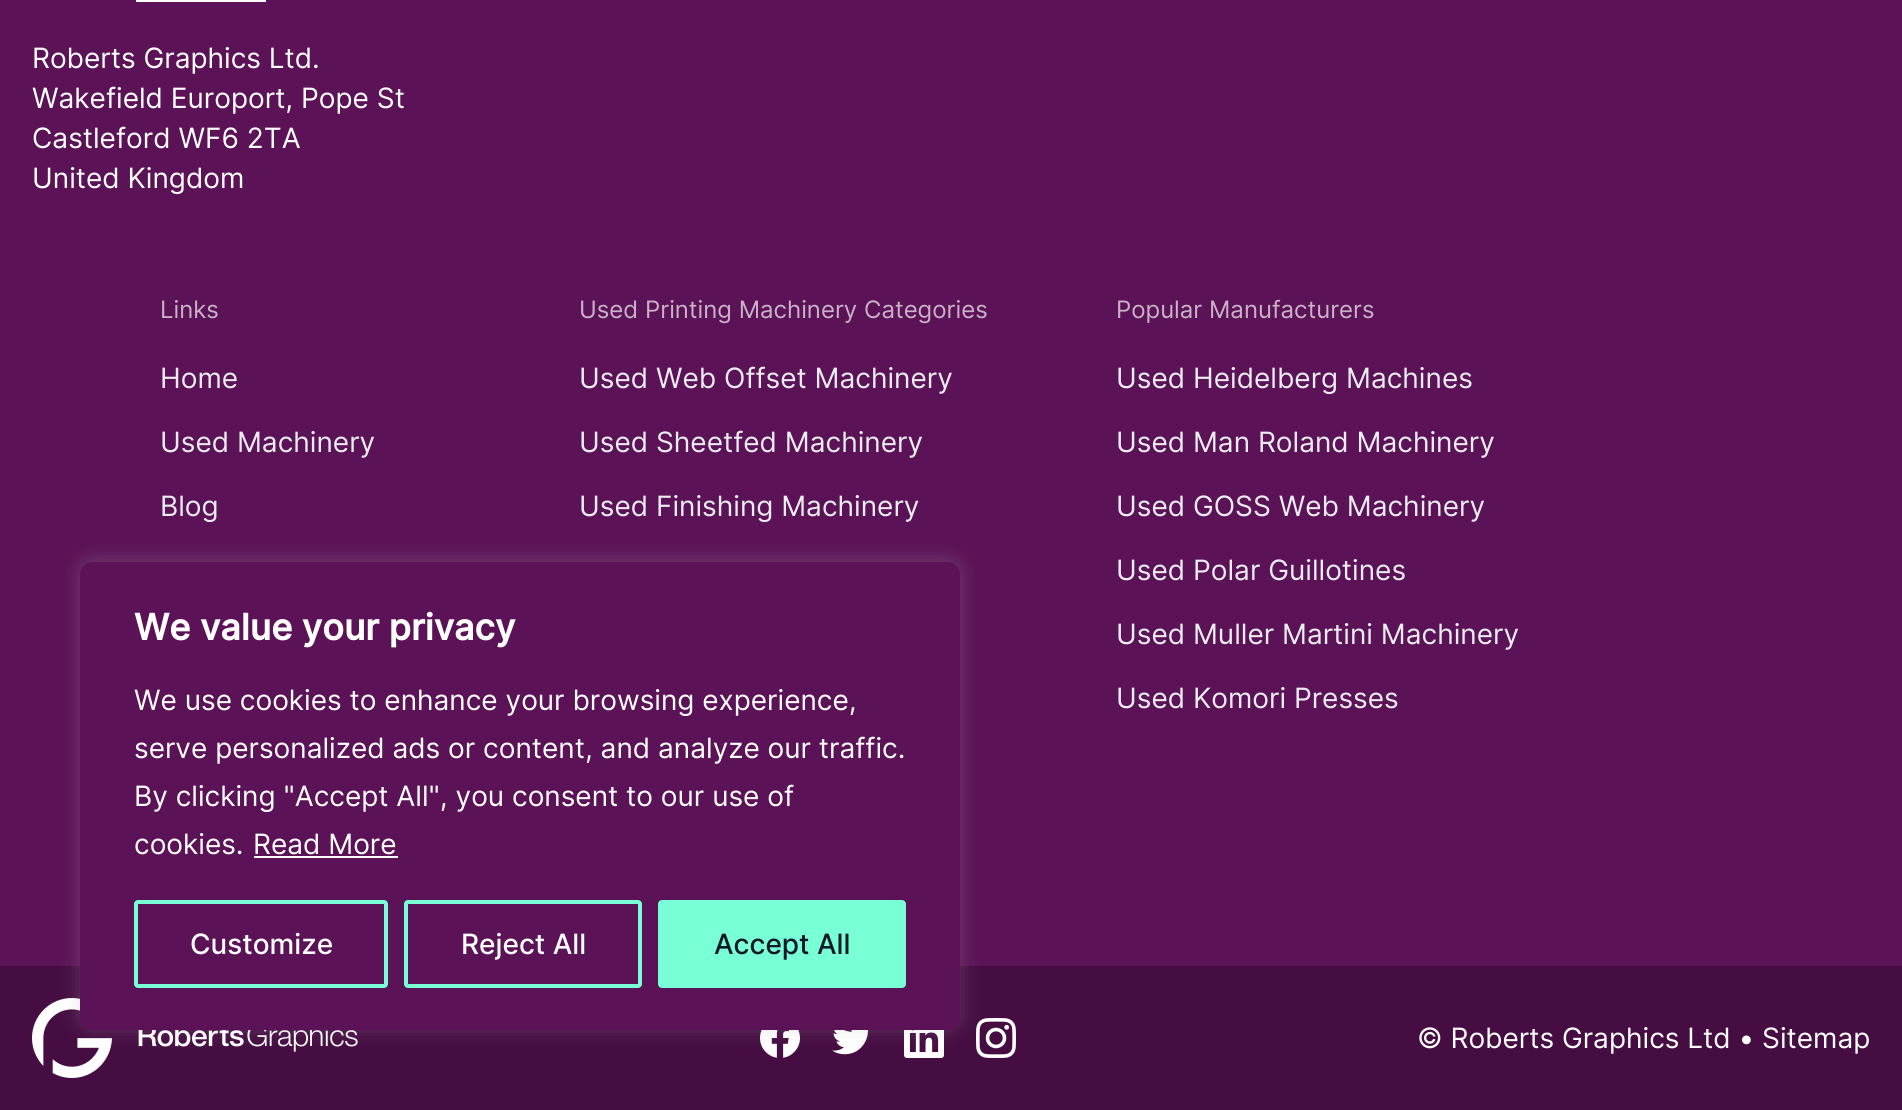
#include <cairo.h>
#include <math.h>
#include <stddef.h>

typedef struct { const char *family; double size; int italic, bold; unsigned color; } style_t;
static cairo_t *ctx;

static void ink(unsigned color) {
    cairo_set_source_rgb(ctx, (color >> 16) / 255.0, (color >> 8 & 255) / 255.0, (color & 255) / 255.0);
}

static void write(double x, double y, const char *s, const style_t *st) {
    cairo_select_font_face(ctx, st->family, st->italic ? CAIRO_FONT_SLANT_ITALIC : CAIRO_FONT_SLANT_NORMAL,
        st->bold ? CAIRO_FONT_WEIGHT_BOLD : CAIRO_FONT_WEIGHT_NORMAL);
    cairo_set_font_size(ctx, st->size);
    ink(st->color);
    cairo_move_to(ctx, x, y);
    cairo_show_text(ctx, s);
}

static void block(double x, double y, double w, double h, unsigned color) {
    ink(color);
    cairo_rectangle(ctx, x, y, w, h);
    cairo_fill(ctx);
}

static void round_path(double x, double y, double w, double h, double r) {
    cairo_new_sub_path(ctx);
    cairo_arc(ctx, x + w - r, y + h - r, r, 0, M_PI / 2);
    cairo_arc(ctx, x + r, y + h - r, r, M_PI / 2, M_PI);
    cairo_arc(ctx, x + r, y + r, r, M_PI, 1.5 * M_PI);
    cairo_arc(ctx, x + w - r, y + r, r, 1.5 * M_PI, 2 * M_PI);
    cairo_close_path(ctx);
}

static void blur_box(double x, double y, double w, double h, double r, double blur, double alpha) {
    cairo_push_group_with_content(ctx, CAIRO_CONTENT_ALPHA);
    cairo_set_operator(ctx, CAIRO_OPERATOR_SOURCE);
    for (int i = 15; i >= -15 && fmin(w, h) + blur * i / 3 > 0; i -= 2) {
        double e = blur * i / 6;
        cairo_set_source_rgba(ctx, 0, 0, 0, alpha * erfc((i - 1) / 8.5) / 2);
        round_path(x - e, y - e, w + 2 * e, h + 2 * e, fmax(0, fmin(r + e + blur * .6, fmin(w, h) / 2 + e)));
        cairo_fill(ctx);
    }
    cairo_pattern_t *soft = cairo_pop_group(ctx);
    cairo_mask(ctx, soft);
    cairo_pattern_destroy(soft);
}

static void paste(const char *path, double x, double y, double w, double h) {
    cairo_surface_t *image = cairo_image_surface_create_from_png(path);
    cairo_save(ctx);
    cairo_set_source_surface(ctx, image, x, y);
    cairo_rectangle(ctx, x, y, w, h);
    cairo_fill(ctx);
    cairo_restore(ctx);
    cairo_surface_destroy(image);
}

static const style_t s1 = {"Inter", 28, 0, 0, 0xffffff};
static const style_t s2 = {"Inter", 24, 0, 0, 0xc9b1c7};
static const style_t s3 = {"Inter", 28, 0, 0, 0xeaecf0};
static const style_t s4 = {"Inter", 36, 0, 1, 0xffffff};
static const style_t s5 = {"Inter Medium", 28, 0, 0, 0xffffff};
static const style_t s6 = {"Inter Medium", 28, 0, 0, 0x101828};

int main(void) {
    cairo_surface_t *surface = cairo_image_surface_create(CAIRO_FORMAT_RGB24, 1902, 1110);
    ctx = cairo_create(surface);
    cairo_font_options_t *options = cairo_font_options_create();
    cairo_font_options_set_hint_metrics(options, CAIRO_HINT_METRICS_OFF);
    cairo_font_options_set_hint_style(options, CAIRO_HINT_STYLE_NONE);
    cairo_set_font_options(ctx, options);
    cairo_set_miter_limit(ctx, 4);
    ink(0x5b1256);
    cairo_paint(ctx);
    block(136, 0, 130, 2, 0xffffff);
    write(32, 68, "Roberts Graphics Ltd.", &s1);
    write(32, 108, "Wakefield Europort, Pope St", &s1);
    write(32, 148, "Castleford WF6 2TA", &s1);
    write(32, 188, "United Kingdom", &s1);
    write(160, 318, "Links", &s2);
    write(160, 388, "Home", &s3);
    write(160, 452, "Used Machinery", &s3);
    write(160, 516, "Blog", &s3);
    write(579, 318, "Used Printing Machinery Categories", &s2);
    write(579, 388, "Used Web Offset Machinery", &s3);
    write(579, 452, "Used Sheetfed Machinery", &s3);
    write(579, 516, "Used Finishing Machinery", &s3);
    write(1116, 318, "Popular Manufacturers", &s2);
    write(1116, 388, "Used Heidelberg Machines", &s3);
    write(1116, 452, "Used Man Roland Machinery", &s3);
    write(1116, 516, "Used GOSS Web Machinery", &s3);
    write(1116, 580, "Used Polar Guillotines", &s3);
    write(1116, 644, "Used Muller Martini Machinery", &s3);
    write(1116, 708, "Used Komori Presses", &s3);
    block(0, 966, 1902, 144, 0x460d42);
    paste("pic1.png", 32, 998, 326, 80);
    paste("pic2.png", 760, 1030, 40, 28);
    paste("pic3.png", 832, 1030, 36, 25);
    paste("pic4.png", 904, 1030, 40, 28);
    paste("pic5.png", 976, 1018, 40, 40);
    write(1417, 1048, "© Roberts Graphics Ltd • Sitemap", &s1);
    ink(0xacabab);
    blur_box(80, 560, 880, 468, 12, 10, 0.3);
    ink(0x5b1256);
    round_path(81, 563, 878, 466, 11);
    cairo_fill_preserve(ctx);
    cairo_stroke(ctx);
    write(134, 640, "We value your privacy", &s4);
    write(134, 710, "We use cookies to enhance your browsing experience,", &s1);
    write(134, 758, "serve personalized ads or content, and analyze our traffic.", &s1);
    write(134, 806, "By clicking \"Accept All\", you consent to our use of", &s1);
    write(134, 854, "cookies.", &s1);
    write(253, 854, "Read More", &s1);
    block(254, 856, 144, 2, 0xffffff);
    round_path(136, 902, 250, 84, 2);
    ink(0x78ffd6);
    cairo_set_line_width(ctx, 4);
    cairo_stroke(ctx);
    write(190, 954, "Customize", &s5);
    round_path(406, 902, 234, 84, 2);
    ink(0x78ffd6);
    cairo_stroke(ctx);
    write(461, 954, "Reject All", &s5);
    ink(0x78ffd6);
    round_path(660, 902, 244, 84, 2);
    cairo_fill_preserve(ctx);
    cairo_stroke(ctx);
    write(714, 954, "Accept All", &s6);
    cairo_surface_write_to_png(surface, "screenshot.png");
    cairo_font_options_destroy(options);
    cairo_destroy(ctx);
    cairo_surface_destroy(surface);
    return 0;
}
